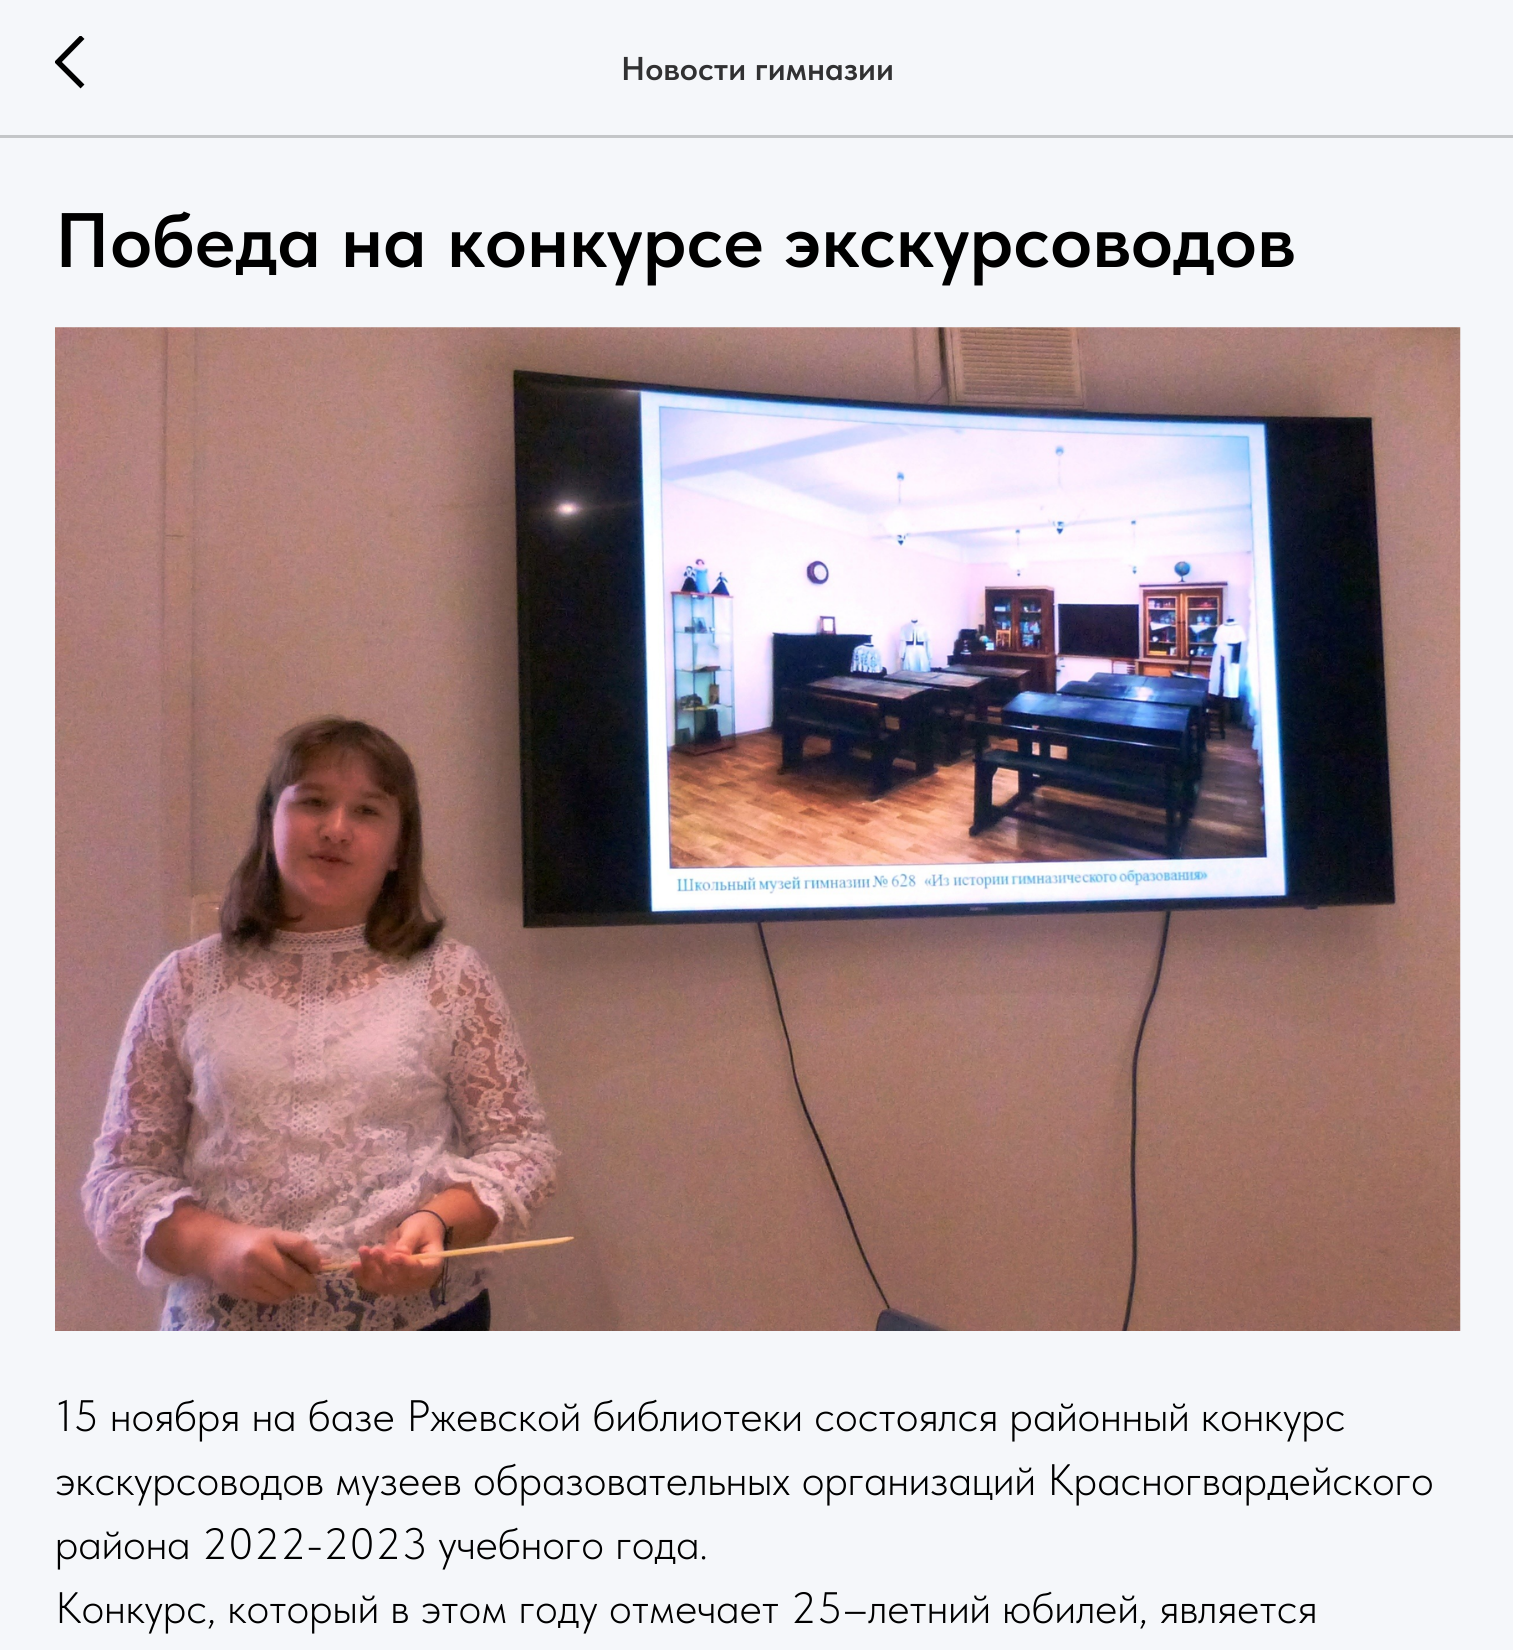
#include <cairo.h>
#include <math.h>
#include <stddef.h>

typedef struct { const char *family; double size; int italic, bold; unsigned color; } style_t;
static cairo_t *ctx;

static void ink(unsigned color) {
    cairo_set_source_rgb(ctx, (color >> 16) / 255.0, (color >> 8 & 255) / 255.0, (color & 255) / 255.0);
}

static void write(double x, double y, const char *s, const style_t *st) {
    cairo_select_font_face(ctx, st->family, st->italic ? CAIRO_FONT_SLANT_ITALIC : CAIRO_FONT_SLANT_NORMAL,
        st->bold ? CAIRO_FONT_WEIGHT_BOLD : CAIRO_FONT_WEIGHT_NORMAL);
    cairo_set_font_size(ctx, st->size);
    ink(st->color);
    cairo_move_to(ctx, x, y);
    cairo_show_text(ctx, s);
}

static void block(double x, double y, double w, double h, unsigned color) {
    ink(color);
    cairo_rectangle(ctx, x, y, w, h);
    cairo_fill(ctx);
}

static void paste(const char *path, double x, double y, double w, double h) {
    cairo_surface_t *image = cairo_image_surface_create_from_png(path);
    cairo_save(ctx);
    cairo_set_source_surface(ctx, image, x, y);
    cairo_rectangle(ctx, x, y, w, h);
    cairo_fill(ctx);
    cairo_restore(ctx);
    cairo_surface_destroy(image);
}

static const style_t s1 = {"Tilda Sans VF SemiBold", 33, 0, 0, 0x313132};
static const style_t s2 = {"Tilda Sans VF SemiBold", 77, 0, 0, 0x000000};
static const style_t s3 = {"Tilda Sans VF Light", 44, 0, 0, 0x000000};

int main(void) {
    cairo_surface_t *surface = cairo_image_surface_create(CAIRO_FORMAT_RGB24, 1513, 1650);
    ctx = cairo_create(surface);
    cairo_font_options_t *options = cairo_font_options_create();
    cairo_font_options_set_hint_metrics(options, CAIRO_HINT_METRICS_OFF);
    cairo_font_options_set_hint_style(options, CAIRO_HINT_STYLE_NONE);
    cairo_set_font_options(ctx, options);
    cairo_set_miter_limit(ctx, 4);
    ink(0xf5f7fa);
    cairo_paint(ctx);
    block(0, 135, 1513, 3, 0xc4c6c8);
    cairo_save(ctx);
    cairo_rectangle(ctx, 55, 36, 30, 55);
    cairo_clip(ctx);
    cairo_new_path(ctx);
    cairo_move_to(ctx, 82.5, 86.5);
    cairo_line_to(ctx, 58, 62);
    cairo_line_to(ctx, 82.5, 37);
    ink(0x000000);
    cairo_set_line_width(ctx, 5.5);
    cairo_stroke(ctx);
    cairo_restore(ctx);
    write(621, 80, "Новости гимназии", &s1);
    write(55, 267, "Победа на конкурсе экскурсоводов", &s2);
    paste("pic1.png", 55, 327, 1406, 1004);
    write(55, 1431, "15 ноября на базе Ржевской библиотеки состоялся районный конкурс", &s3);
    write(55, 1495, "экскурсоводов музеев образовательных организаций Красногвардейского", &s3);
    write(55, 1559, "района 2022-2023 учебного года.", &s3);
    write(55, 1623, "Конкурс, который в этом году отмечает 25–летний юбилей, является", &s3);
    cairo_surface_write_to_png(surface, "screenshot.png");
    cairo_font_options_destroy(options);
    cairo_destroy(ctx);
    cairo_surface_destroy(surface);
    return 0;
}
